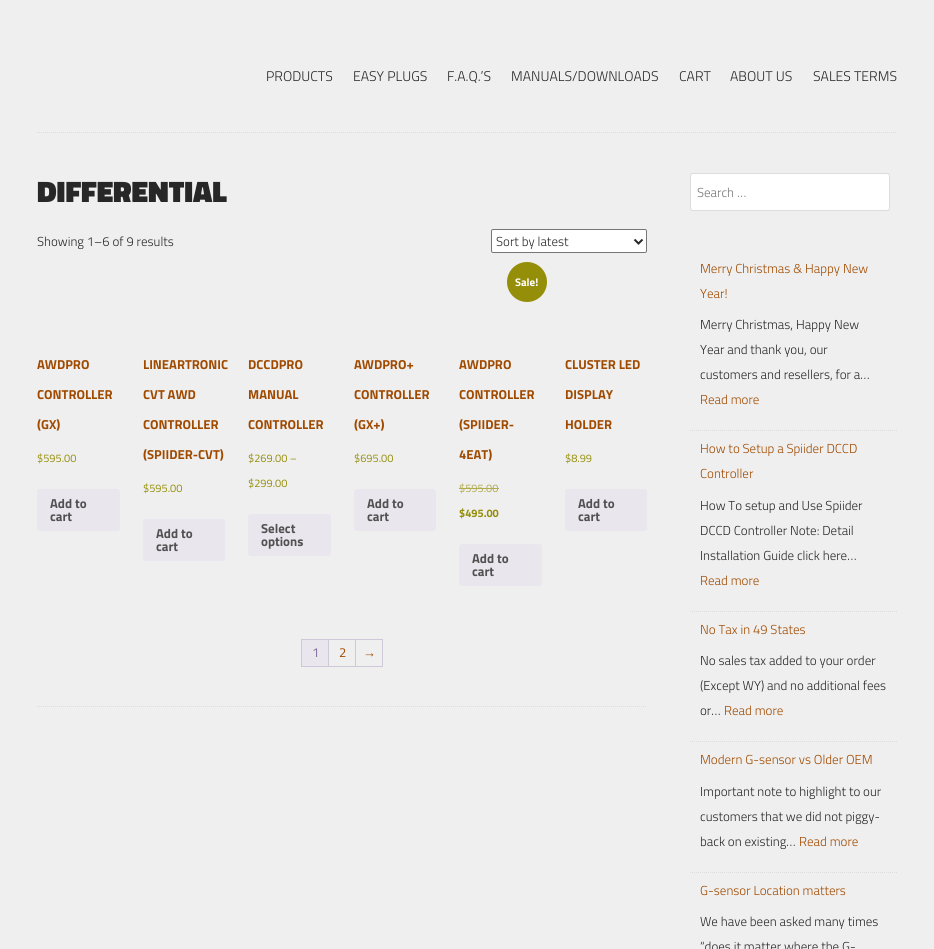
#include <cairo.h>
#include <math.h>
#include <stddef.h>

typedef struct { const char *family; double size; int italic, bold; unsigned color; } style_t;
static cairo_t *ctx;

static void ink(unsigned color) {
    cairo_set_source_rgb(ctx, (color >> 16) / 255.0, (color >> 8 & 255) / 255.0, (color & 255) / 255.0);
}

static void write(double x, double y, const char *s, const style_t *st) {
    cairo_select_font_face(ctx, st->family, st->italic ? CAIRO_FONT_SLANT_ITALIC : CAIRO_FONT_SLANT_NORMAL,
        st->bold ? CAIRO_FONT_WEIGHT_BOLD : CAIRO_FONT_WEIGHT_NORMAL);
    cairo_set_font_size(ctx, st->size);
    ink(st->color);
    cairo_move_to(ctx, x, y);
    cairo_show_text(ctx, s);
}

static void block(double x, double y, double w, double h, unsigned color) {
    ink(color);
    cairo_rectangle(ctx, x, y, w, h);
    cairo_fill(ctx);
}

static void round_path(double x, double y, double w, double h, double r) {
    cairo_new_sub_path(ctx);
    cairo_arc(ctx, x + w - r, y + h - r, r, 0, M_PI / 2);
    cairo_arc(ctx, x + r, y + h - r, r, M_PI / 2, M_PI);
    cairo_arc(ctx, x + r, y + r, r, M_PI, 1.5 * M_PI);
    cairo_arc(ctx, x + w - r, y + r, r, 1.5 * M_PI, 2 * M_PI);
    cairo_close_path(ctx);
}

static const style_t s1 = {"Titillium Web Light", 14, 0, 0, 0x272727};
static const style_t s2 = {"Titillium Web Black", 30, 0, 0, 0x272727};
static const style_t s3 = {"Titillium Web Light", 13, 0, 0, 0x272727};
static const style_t s4 = {"Titillium Web", 13, 0, 1, 0xa04a00};
static const style_t s5 = {"Titillium Web", 11, 0, 0, 0x958e09};
static const style_t s6 = {"Titillium Web", 13, 0, 1, 0x515151};
static const style_t s7 = {"Titillium Web", 11, 0, 1, 0xffffff};
static const style_t s8 = {"Titillium Web", 11, 0, 0, 0xb0ab4e};
static const style_t s9 = {"Titillium Web", 11, 0, 1, 0x958e09};
static const style_t s10 = {"Titillium Web", 13, 0, 0, 0x816f98};
static const style_t s11 = {"Titillium Web", 13, 0, 0, 0xa04a00};
static const style_t s12 = {"Liberation Sans", 13, 0, 0, 0xa04a00};
static const style_t s13 = {"Titillium Web Light", 13, 0, 0, 0x757575};
static const style_t s14 = {"Titillium Web Light", 13, 0, 0, 0xa04a00};

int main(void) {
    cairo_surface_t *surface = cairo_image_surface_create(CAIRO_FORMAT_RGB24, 934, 949);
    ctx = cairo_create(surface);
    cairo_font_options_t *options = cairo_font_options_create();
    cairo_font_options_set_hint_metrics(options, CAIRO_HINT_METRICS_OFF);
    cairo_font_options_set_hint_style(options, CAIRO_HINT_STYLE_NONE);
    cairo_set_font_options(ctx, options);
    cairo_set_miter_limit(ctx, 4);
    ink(0xefefef);
    cairo_paint(ctx);
    write(266, 81, "PRODUCTS", &s1);
    write(353, 81, "EASY PLUGS", &s1);
    write(447, 81, "F.A.Q.’S", &s1);
    write(511, 81, "MANUALS/DOWNLOADS", &s1);
    write(679, 81, "CART", &s1);
    write(730, 81, "ABOUT US", &s1);
    write(813, 81, "SALES TERMS", &s1);
    cairo_new_path(ctx);
    cairo_move_to(ctx, 37, 132.5);
    cairo_line_to(ctx, 897, 132.5);
    ink(0xdcdcdc);
    cairo_set_line_width(ctx, 1);
    cairo_set_dash(ctx, (double[]){1, 1}, 2, 0);
    cairo_stroke(ctx);
    cairo_new_path(ctx);
    cairo_move_to(ctx, 37, 706.5);
    cairo_line_to(ctx, 647, 706.5);
    cairo_stroke(ctx);
    write(37, 202, "DIFFERENTIAL", &s2);
    write(37, 246, "Showing 1–6 of 9 results", &s3);
    ink(0xffffff);
    round_path(491.5, 229.5, 155, 23, 1.5);
    cairo_fill_preserve(ctx);
    ink(0x767676);
    cairo_set_dash(ctx, NULL, 0, 0);
    cairo_stroke(ctx);
    cairo_new_path(ctx);
    cairo_move_to(ctx, 634.5, 239.5);
    cairo_line_to(ctx, 638.5, 243.5);
    cairo_line_to(ctx, 642.5, 239.5);
    ink(0x272727);
    cairo_set_line_width(ctx, 2);
    cairo_stroke(ctx);
    write(496, 246, "Sort by latest", &s3);
    write(37, 369, "AWDPRO", &s4);
    write(37, 399, "CONTROLLER", &s4);
    write(37, 429, "(GX)", &s4);
    write(37, 462, "$595.00", &s5);
    ink(0xe9e6ed);
    round_path(37, 489, 83, 42, 3);
    cairo_fill(ctx);
    write(50, 508, "Add to", &s6);
    write(50, 521, "cart", &s6);
    write(143, 369, "LINEARTRONIC", &s4);
    write(143, 399, "CVT AWD", &s4);
    write(143, 429, "CONTROLLER", &s4);
    write(143, 459, "(SPIIDER-CVT)", &s4);
    write(143, 492, "$595.00", &s5);
    ink(0xe9e6ed);
    round_path(143, 519, 82, 42, 3);
    cairo_fill(ctx);
    write(156, 538, "Add to", &s6);
    write(156, 551, "cart", &s6);
    write(248, 369, "DCCDPRO", &s4);
    write(248, 399, "MANUAL", &s4);
    write(248, 429, "CONTROLLER", &s4);
    write(248, 462, "$269.00 –", &s5);
    write(248, 487, "$299.00", &s5);
    ink(0xe9e6ed);
    round_path(248, 514, 83, 42, 3);
    cairo_fill(ctx);
    write(261, 533, "Select", &s6);
    write(261, 546, "options", &s6);
    write(354, 369, "AWDPRO+", &s4);
    write(354, 399, "CONTROLLER", &s4);
    write(354, 429, "(GX+)", &s4);
    write(354, 462, "$695.00", &s5);
    ink(0xe9e6ed);
    round_path(354, 489, 82, 42, 3);
    cairo_fill(ctx);
    write(367, 508, "Add to", &s6);
    write(367, 521, "cart", &s6);
    ink(0x958e09);
    cairo_new_path(ctx);
    cairo_arc(ctx, 527, 282, 20, 0, 2 * M_PI);
    cairo_fill(ctx);
    write(515, 286, "Sale!", &s7);
    write(459, 369, "AWDPRO", &s4);
    write(459, 399, "CONTROLLER", &s4);
    write(459, 429, "(SPIIDER-", &s4);
    write(459, 459, "4EAT)", &s4);
    write(459, 492, "$595.00", &s8);
    block(459, 488, 40, 1, 0xb0ab4e);
    write(459, 517, "$495.00", &s9);
    ink(0xe9e6ed);
    round_path(459, 544, 83, 42, 3);
    cairo_fill(ctx);
    write(472, 563, "Add to", &s6);
    write(472, 576, "cart", &s6);
    write(565, 369, "CLUSTER LED", &s4);
    write(565, 399, "DISPLAY", &s4);
    write(565, 429, "HOLDER", &s4);
    write(565, 462, "$8.99", &s5);
    ink(0xe9e6ed);
    round_path(565, 489, 82, 42, 3);
    cairo_fill(ctx);
    write(578, 508, "Add to", &s6);
    write(578, 521, "cart", &s6);
    block(301, 639, 82, 1, 0xcfc8d8);
    block(301, 666, 82, 1, 0xcfc8d8);
    block(301, 639, 1, 28, 0xcfc8d8);
    block(328, 640, 1, 26, 0xcfc8d8);
    block(302, 640, 26, 26, 0xe9e6ed);
    write(312, 657, "1", &s10);
    block(355, 640, 1, 26, 0xcfc8d8);
    write(339, 657, "2", &s11);
    block(382, 640, 1, 26, 0xcfc8d8);
    write(363, 657, "→", &s12);
    ink(0xffffff);
    round_path(690.5, 173.5, 199, 37, 2.5);
    cairo_fill_preserve(ctx);
    ink(0xdcdcdc);
    cairo_set_line_width(ctx, 1);
    cairo_stroke(ctx);
    write(697, 197, "Search …", &s13);
    cairo_new_path(ctx);
    cairo_move_to(ctx, 690, 430.5);
    cairo_line_to(ctx, 897, 430.5);
    ink(0xdcdcdc);
    cairo_set_dash(ctx, (double[]){1, 1}, 2, 0);
    cairo_stroke(ctx);
    write(700, 273, "Merry Christmas & Happy New", &s14);
    write(700, 298, "Year!", &s14);
    write(700, 329, "Merry Christmas, Happy New", &s3);
    write(700, 354, "Year and thank you, our", &s3);
    write(700, 379, "customers and resellers, for a…", &s3);
    write(700, 404, "Read more", &s14);
    cairo_new_path(ctx);
    cairo_move_to(ctx, 690, 611.5);
    cairo_line_to(ctx, 897, 611.5);
    ink(0xdcdcdc);
    cairo_stroke(ctx);
    write(700, 453, "How to Setup a Spiider DCCD", &s14);
    write(700, 478, "Controller", &s14);
    write(700, 510, "How To setup and Use Spiider", &s3);
    write(700, 535, "DCCD Controller Note: Detail", &s3);
    write(700, 560, "Installation Guide click here…", &s3);
    write(700, 585, "Read more", &s14);
    cairo_new_path(ctx);
    cairo_move_to(ctx, 690, 741.5);
    cairo_line_to(ctx, 897, 741.5);
    ink(0xdcdcdc);
    cairo_stroke(ctx);
    write(700, 634, "No Tax in 49 States", &s14);
    write(700, 665, "No sales tax added to your order", &s3);
    write(700, 690, "(Except WY) and no additional fees", &s3);
    write(700, 715, "or…", &s3);
    write(724, 715, "Read more", &s14);
    cairo_new_path(ctx);
    cairo_move_to(ctx, 690, 872.5);
    cairo_line_to(ctx, 897, 872.5);
    ink(0xdcdcdc);
    cairo_stroke(ctx);
    write(700, 764, "Modern G-sensor vs Older OEM", &s14);
    write(700, 796, "Important note to highlight to our", &s3);
    write(700, 821, "customers that we did not piggy-", &s3);
    write(700, 846, "back on existing…", &s3);
    write(799, 846, "Read more", &s14);
    write(700, 895, "G-sensor Location matters", &s14);
    write(700, 926, "We have been asked many times", &s3);
    write(700, 951, "“does it matter where the G-", &s3);
    cairo_surface_write_to_png(surface, "screenshot.png");
    cairo_font_options_destroy(options);
    cairo_destroy(ctx);
    cairo_surface_destroy(surface);
    return 0;
}
